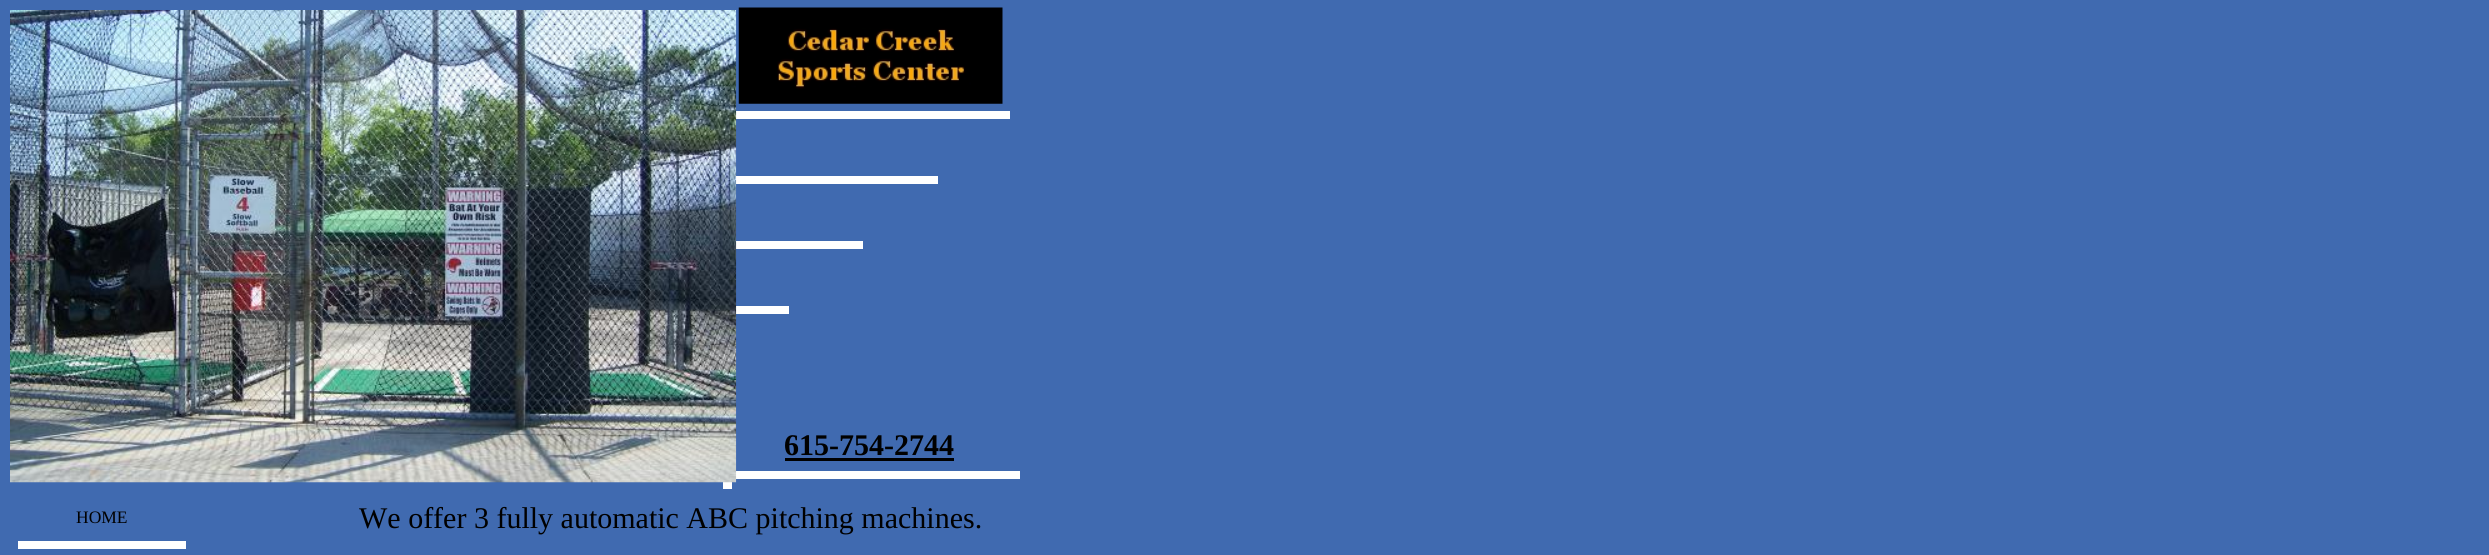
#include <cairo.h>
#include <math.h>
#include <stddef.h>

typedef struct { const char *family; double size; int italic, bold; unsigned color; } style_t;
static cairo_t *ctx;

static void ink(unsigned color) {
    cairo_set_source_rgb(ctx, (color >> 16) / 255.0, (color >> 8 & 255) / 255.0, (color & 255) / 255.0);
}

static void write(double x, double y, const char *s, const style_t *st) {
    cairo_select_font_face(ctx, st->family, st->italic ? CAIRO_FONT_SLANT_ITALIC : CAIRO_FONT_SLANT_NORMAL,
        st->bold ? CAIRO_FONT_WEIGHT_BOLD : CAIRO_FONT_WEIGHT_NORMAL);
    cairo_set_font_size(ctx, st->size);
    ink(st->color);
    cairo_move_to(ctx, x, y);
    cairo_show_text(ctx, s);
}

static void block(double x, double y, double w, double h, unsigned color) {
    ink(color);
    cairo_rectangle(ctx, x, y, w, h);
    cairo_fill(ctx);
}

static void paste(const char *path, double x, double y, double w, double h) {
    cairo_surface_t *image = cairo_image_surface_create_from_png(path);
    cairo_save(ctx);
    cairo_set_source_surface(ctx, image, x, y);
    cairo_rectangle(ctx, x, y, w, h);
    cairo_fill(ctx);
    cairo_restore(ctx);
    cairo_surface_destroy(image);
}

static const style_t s1 = {"Liberation Serif", 30, 0, 1, 0x000000};
static const style_t s2 = {"Liberation Serif", 17.5, 0, 0, 0x000000};
static const style_t s3 = {"Liberation Serif", 30, 0, 0, 0x000000};

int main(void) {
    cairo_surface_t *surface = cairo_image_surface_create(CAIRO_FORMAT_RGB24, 2489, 555);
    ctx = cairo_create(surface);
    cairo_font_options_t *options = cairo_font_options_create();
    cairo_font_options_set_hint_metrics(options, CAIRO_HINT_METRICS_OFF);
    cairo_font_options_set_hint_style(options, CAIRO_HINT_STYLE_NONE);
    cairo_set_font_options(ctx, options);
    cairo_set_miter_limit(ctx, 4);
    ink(0x406ab0);
    cairo_paint(ctx);
    block(730, 111, 280, 8, 0xffffff);
    block(730, 176, 208, 8, 0xffffff);
    block(731, 241, 132, 8, 0xffffff);
    block(731, 306, 58, 8, 0xffffff);
    block(736, 471, 284, 8, 0xffffff);
    block(723, 482, 9, 7, 0xffffff);
    paste("pic1.png", 10, 10, 727, 473);
    paste("pic2.png", 738, 7, 265, 97);
    write(784, 455, "615-754-2744", &s1);
    block(785, 458, 169, 3, 0x000000);
    write(76, 523, "HOME", &s2);
    block(18, 541, 168, 8, 0xffffff);
    write(359, 528, "We offer 3 fully automatic ABC pitching machines.", &s3);
    cairo_surface_write_to_png(surface, "screenshot.png");
    cairo_font_options_destroy(options);
    cairo_destroy(ctx);
    cairo_surface_destroy(surface);
    return 0;
}
